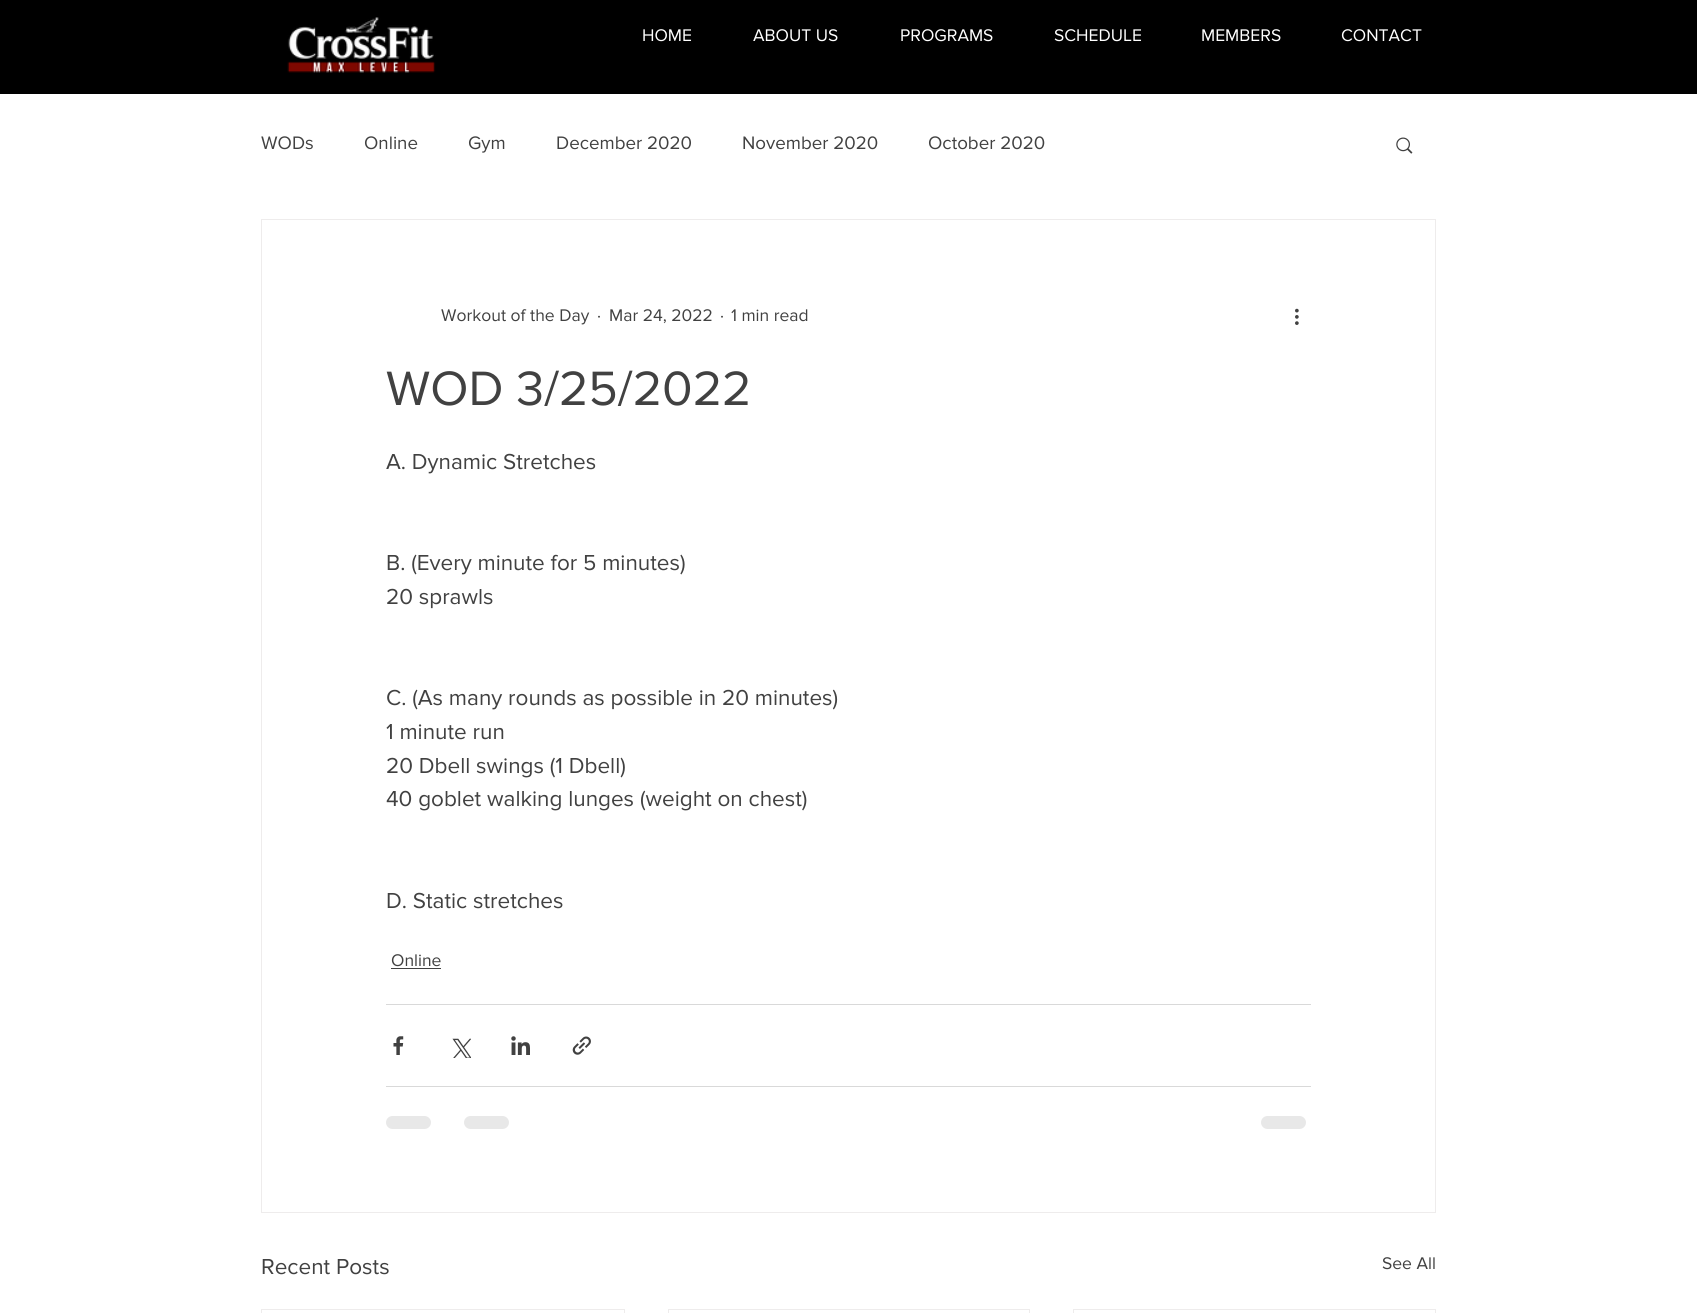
#include <cairo.h>
#include <math.h>
#include <stddef.h>

typedef struct { const char *family; double size; int italic, bold; unsigned color; } style_t;
static cairo_t *ctx;

static void ink(unsigned color) {
    cairo_set_source_rgb(ctx, (color >> 16) / 255.0, (color >> 8 & 255) / 255.0, (color & 255) / 255.0);
}

static void write(double x, double y, const char *s, const style_t *st) {
    cairo_select_font_face(ctx, st->family, st->italic ? CAIRO_FONT_SLANT_ITALIC : CAIRO_FONT_SLANT_NORMAL,
        st->bold ? CAIRO_FONT_WEIGHT_BOLD : CAIRO_FONT_WEIGHT_NORMAL);
    cairo_set_font_size(ctx, st->size);
    ink(st->color);
    cairo_move_to(ctx, x, y);
    cairo_show_text(ctx, s);
}

static void block(double x, double y, double w, double h, unsigned color) {
    ink(color);
    cairo_rectangle(ctx, x, y, w, h);
    cairo_fill(ctx);
}

static void round_path(double x, double y, double w, double h, double r) {
    cairo_new_sub_path(ctx);
    cairo_arc(ctx, x + w - r, y + h - r, r, 0, M_PI / 2);
    cairo_arc(ctx, x + r, y + h - r, r, M_PI / 2, M_PI);
    cairo_arc(ctx, x + r, y + r, r, M_PI, 1.5 * M_PI);
    cairo_arc(ctx, x + w - r, y + r, r, 1.5 * M_PI, 2 * M_PI);
    cairo_close_path(ctx);
}

static void paste(const char *path, double x, double y, double w, double h) {
    cairo_surface_t *image = cairo_image_surface_create_from_png(path);
    cairo_save(ctx);
    cairo_set_source_surface(ctx, image, x, y);
    cairo_rectangle(ctx, x, y, w, h);
    cairo_fill(ctx);
    cairo_restore(ctx);
    cairo_surface_destroy(image);
}

static const style_t s1 = {"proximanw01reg", 17.5, 0, 0, 0xffffff};
static const style_t s2 = {"proximanw01reg", 18.75, 0, 0, 0x414141};
static const style_t s3 = {"proximanw01reg", 17.5, 0, 0, 0x414141};
static const style_t s4 = {"proximanw01reg", 50, 0, 0, 0x414141};
static const style_t s5 = {"proximanw01reg", 22.5, 0, 0, 0x414141};

int main(void) {
    cairo_surface_t *surface = cairo_image_surface_create(CAIRO_FORMAT_RGB24, 1697, 1313);
    ctx = cairo_create(surface);
    cairo_font_options_t *options = cairo_font_options_create();
    cairo_font_options_set_hint_metrics(options, CAIRO_HINT_METRICS_OFF);
    cairo_font_options_set_hint_style(options, CAIRO_HINT_STYLE_NONE);
    cairo_set_font_options(ctx, options);
    cairo_set_miter_limit(ctx, 4);
    ink(0xffffff);
    cairo_paint(ctx);
    block(0, 0, 1697, 94, 0x000000);
    paste("pic1.png", 287, 17, 149, 56);
    write(642, 41, "HOME", &s1);
    write(753, 41, "ABOUT US", &s1);
    write(900, 41, "PROGRAMS", &s1);
    write(1054, 41, "SCHEDULE", &s1);
    write(1201, 41, "MEMBERS", &s1);
    write(1341, 41, "CONTACT", &s1);
    write(261, 149, "WODs", &s2);
    write(364, 149, "Online", &s2);
    write(468, 149, "Gym", &s2);
    write(556, 149, "December 2020", &s2);
    write(742, 149, "November 2020", &s2);
    write(928, 149, "October 2020", &s2);
    paste("pic2.png", 1396, 137, 17, 17);
    cairo_rectangle(ctx, 261.5, 219.5, 1174, 993);
    ink(0xeeecec);
    cairo_set_line_width(ctx, 1);
    cairo_stroke(ctx);
    write(441, 321, "Workout of the Day", &s3);
    write(597, 321, "·", &s3);
    write(609, 321, "Mar 24, 2022", &s3);
    write(720, 321, "·", &s3);
    write(731, 321, "1 min read", &s3);
    paste("pic3.png", 1295, 308, 4, 17);
    write(386, 405, "WOD 3/25/2022", &s4);
    write(386, 469, "A. Dynamic Stretches", &s5);
    write(386, 570, "B. (Every minute for 5 minutes)", &s5);
    write(386, 604, "20 sprawls", &s5);
    write(386, 705, "C. (As many rounds as possible in 20 minutes)", &s5);
    write(386, 739, "1 minute run", &s5);
    write(386, 773, "20 Dbell swings (1 Dbell)", &s5);
    write(386, 806, "40 goblet walking lunges (weight on chest)", &s5);
    write(386, 908, "D. Static stretches", &s5);
    write(391, 966, "Online", &s3);
    block(391, 968, 50, 1, 0x414141);
    block(386, 1004, 925, 1, 0xd9d9d9);
    paste("pic4.png", 393, 1036, 11, 19);
    paste("pic5.png", 452, 1038, 19, 20);
    paste("pic6.png", 511, 1036, 19, 19);
    paste("pic7.png", 572, 1036, 19, 19);
    block(386, 1086, 925, 1, 0xd9d9d9);
    ink(0xe8e8e8);
    round_path(386, 1116, 45, 13, 6.5);
    cairo_fill(ctx);
    round_path(464, 1116, 45, 13, 6.5);
    cairo_fill(ctx);
    round_path(1261, 1116, 45, 13, 6.5);
    cairo_fill(ctx);
    write(261, 1274, "Recent Posts", &s5);
    write(1382, 1269, "See All", &s3);
    cairo_rectangle(ctx, 261.5, 1309.5, 363, 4);
    ink(0xeeecec);
    cairo_stroke(ctx);
    cairo_rectangle(ctx, 668.5, 1309.5, 361, 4);
    cairo_stroke(ctx);
    cairo_rectangle(ctx, 1073.5, 1309.5, 362, 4);
    cairo_stroke(ctx);
    cairo_surface_write_to_png(surface, "screenshot.png");
    cairo_font_options_destroy(options);
    cairo_destroy(ctx);
    cairo_surface_destroy(surface);
    return 0;
}
